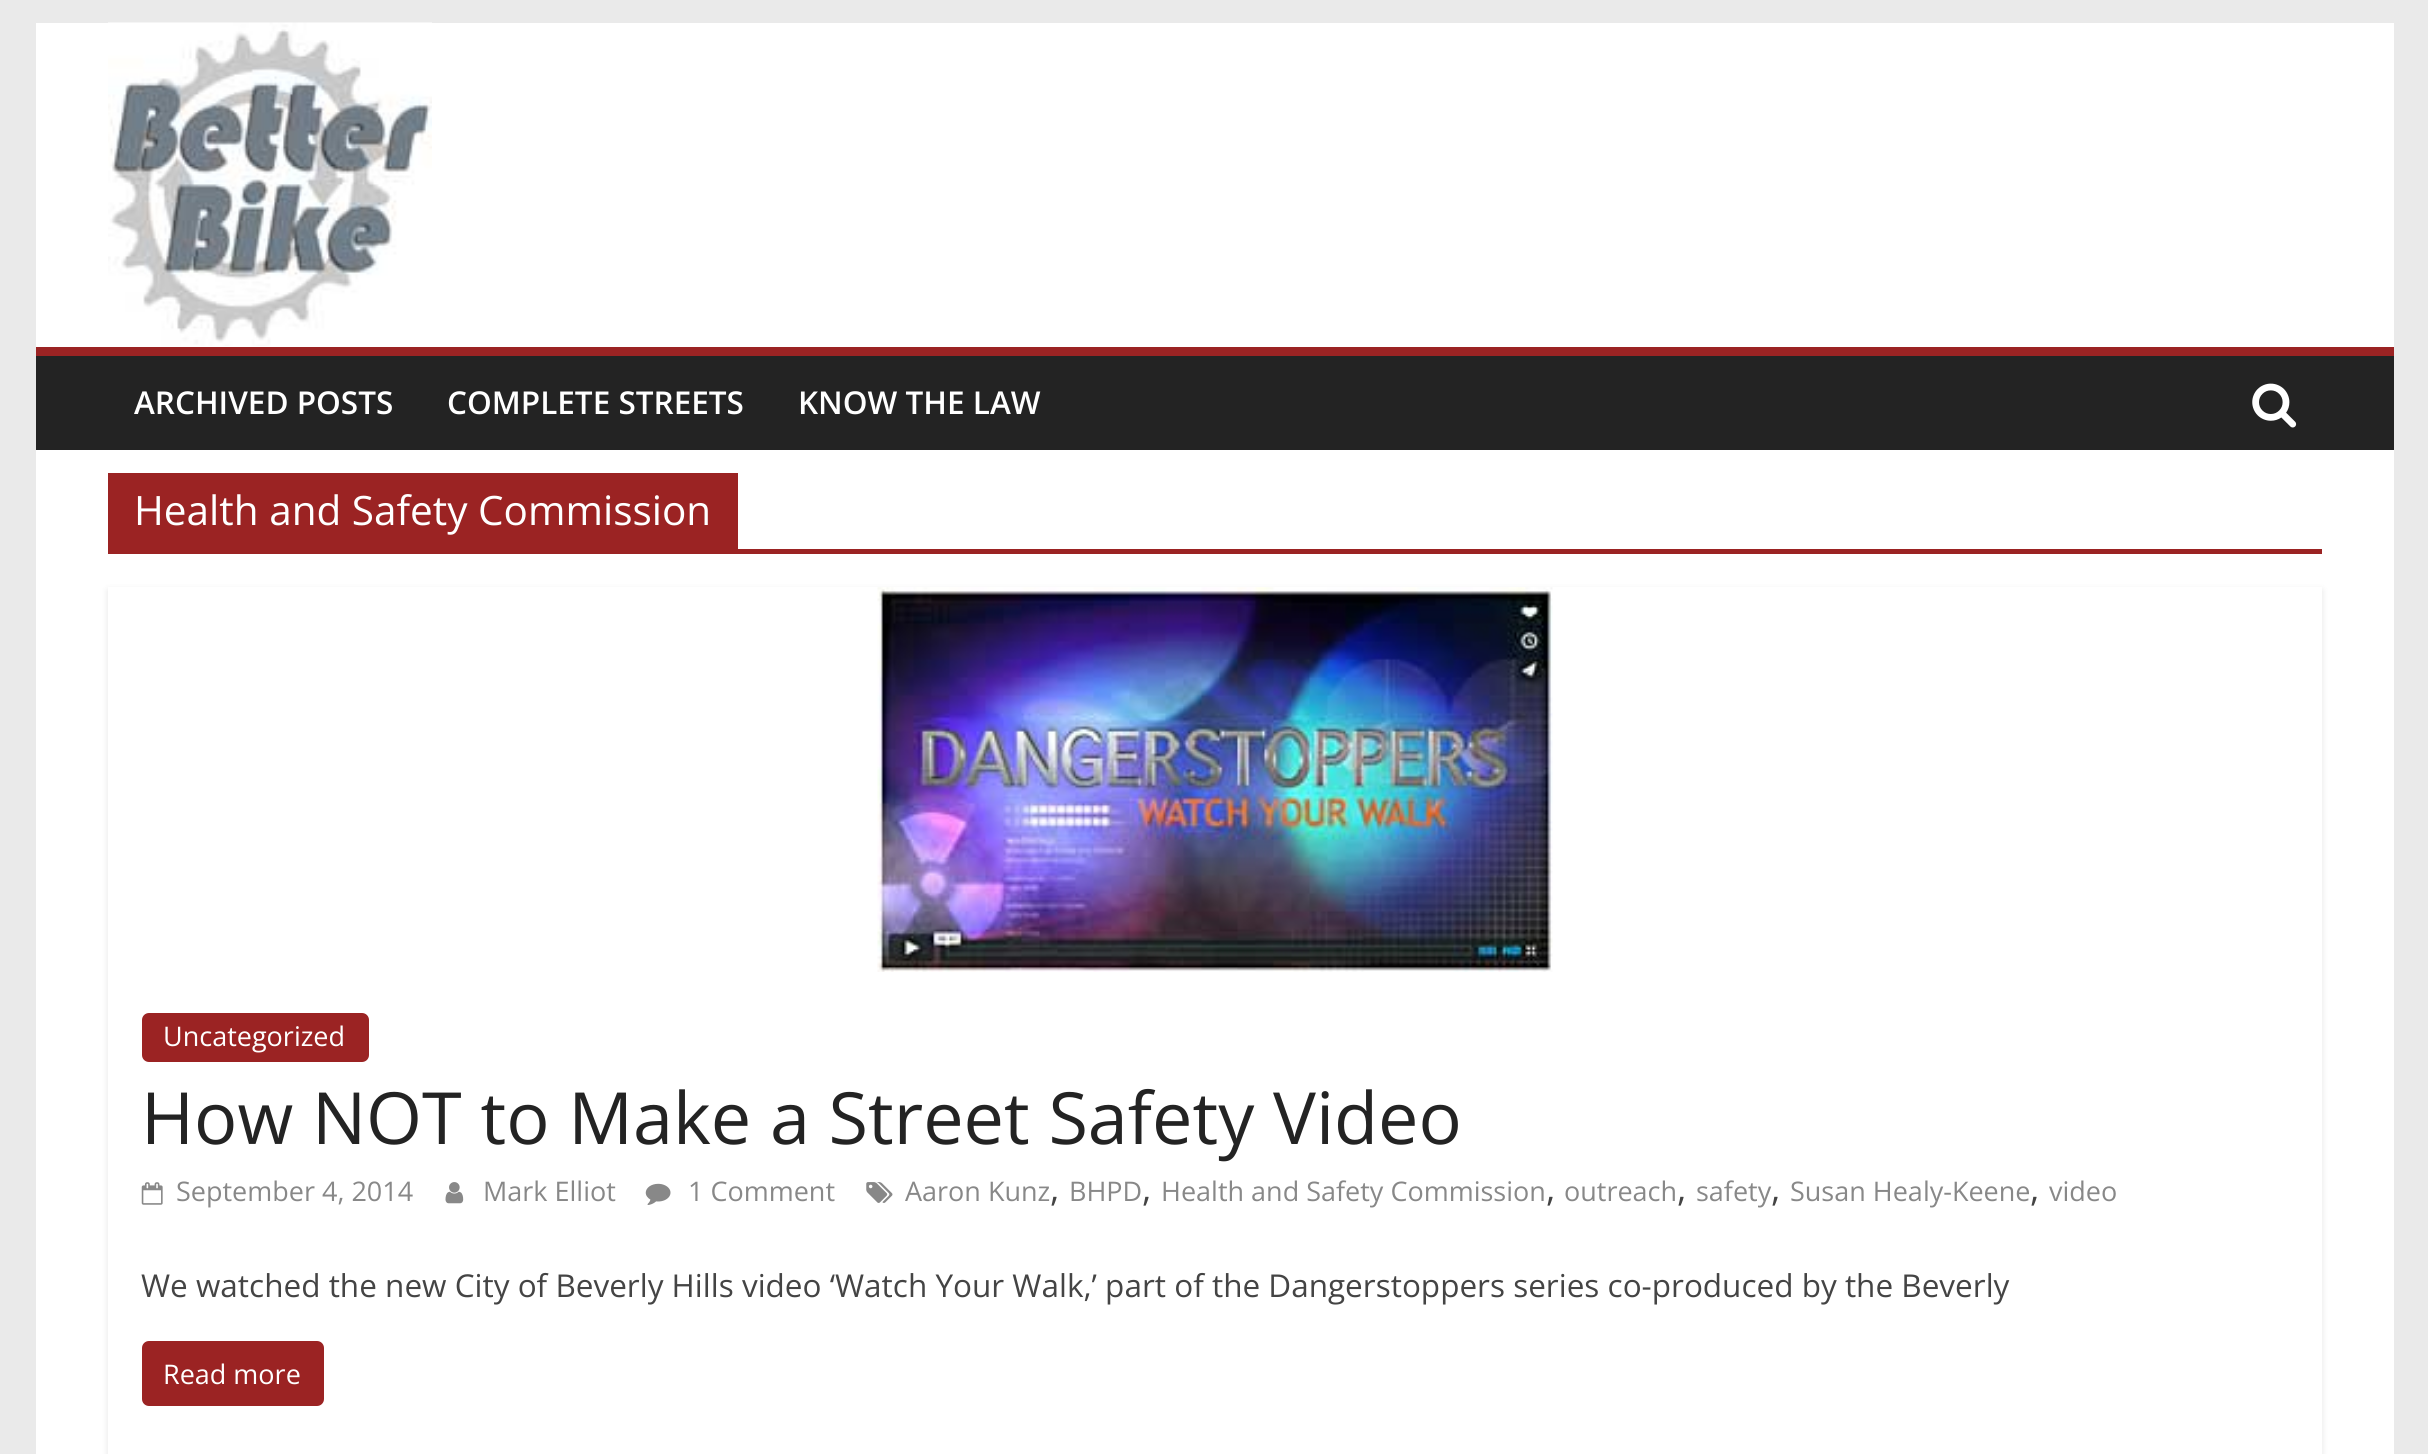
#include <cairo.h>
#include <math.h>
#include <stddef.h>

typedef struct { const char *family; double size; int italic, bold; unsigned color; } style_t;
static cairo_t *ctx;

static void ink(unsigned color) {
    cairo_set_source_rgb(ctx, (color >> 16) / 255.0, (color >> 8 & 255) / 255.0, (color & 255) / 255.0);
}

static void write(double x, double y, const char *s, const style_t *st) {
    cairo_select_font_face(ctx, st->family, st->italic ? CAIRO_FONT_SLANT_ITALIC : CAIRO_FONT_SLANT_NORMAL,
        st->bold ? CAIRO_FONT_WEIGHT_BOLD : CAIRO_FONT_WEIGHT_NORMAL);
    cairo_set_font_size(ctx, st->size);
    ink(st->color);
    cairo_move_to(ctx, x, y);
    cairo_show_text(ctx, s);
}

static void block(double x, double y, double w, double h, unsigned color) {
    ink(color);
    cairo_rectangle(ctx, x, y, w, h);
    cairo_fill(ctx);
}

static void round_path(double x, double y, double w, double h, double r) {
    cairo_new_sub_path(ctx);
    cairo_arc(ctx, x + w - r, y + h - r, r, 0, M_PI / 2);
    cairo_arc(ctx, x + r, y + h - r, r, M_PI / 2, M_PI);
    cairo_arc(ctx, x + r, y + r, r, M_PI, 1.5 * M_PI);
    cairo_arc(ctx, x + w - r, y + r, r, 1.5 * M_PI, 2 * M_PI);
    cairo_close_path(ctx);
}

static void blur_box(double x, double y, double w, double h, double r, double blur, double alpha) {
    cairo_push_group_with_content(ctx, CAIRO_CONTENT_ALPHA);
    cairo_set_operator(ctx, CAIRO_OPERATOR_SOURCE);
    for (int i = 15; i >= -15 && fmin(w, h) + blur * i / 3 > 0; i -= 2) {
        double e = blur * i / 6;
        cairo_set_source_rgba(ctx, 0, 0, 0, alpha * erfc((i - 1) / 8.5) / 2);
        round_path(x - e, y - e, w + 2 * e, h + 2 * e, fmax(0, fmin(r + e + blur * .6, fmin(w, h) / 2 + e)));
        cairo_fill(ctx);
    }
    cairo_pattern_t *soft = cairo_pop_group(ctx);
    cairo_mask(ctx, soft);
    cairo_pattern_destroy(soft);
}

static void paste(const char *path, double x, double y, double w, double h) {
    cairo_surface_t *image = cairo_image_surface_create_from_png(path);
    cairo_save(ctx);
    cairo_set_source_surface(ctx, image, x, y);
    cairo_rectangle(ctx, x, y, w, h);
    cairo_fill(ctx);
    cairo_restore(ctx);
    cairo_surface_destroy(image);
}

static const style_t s1 = {"Open Sans SemiBold", 31.5, 0, 0, 0xffffff};
static const style_t s2 = {"Open Sans", 40.5, 0, 0, 0xffffff};
static const style_t s3 = {"Open Sans", 27, 0, 0, 0xffffff};
static const style_t s4 = {"Open Sans", 72, 0, 0, 0x232323};
static const style_t s5 = {"Open Sans", 27, 0, 0, 0x888888};
static const style_t s6 = {"Open Sans", 36, 0, 0, 0x444444};
static const style_t s7 = {"Open Sans", 31.5, 0, 0, 0x444444};

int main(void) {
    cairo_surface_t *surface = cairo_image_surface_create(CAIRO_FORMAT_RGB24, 2428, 1454);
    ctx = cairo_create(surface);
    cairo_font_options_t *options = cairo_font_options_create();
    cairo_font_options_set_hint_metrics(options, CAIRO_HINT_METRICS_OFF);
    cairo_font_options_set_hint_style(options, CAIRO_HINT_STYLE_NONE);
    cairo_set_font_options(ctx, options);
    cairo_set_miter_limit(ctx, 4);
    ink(0xeaeaea);
    cairo_paint(ctx);
    block(36, 23, 2358, 324, 0xffffff);
    paste("pic1.png", 108, 22, 324, 324);
    block(36, 356, 2358, 94, 0x232323);
    block(36, 347, 2358, 9, 0x9b2323);
    write(134, 414, "ARCHIVED POSTS", &s1);
    write(447, 414, "COMPLETE STREETS", &s1);
    write(798, 414, "KNOW THE LAW", &s1);
    paste("pic2.png", 2252, 383, 45, 45);
    block(36, 450, 2358, 1004, 0xffffff);
    block(108, 549, 2214, 5, 0x9b2323);
    block(108, 473, 630, 76, 0x9b2323);
    write(134, 525, "Health and Safety Commission", &s2);
    cairo_save(ctx);
    cairo_set_fill_rule(ctx, CAIRO_FILL_RULE_EVEN_ODD);
    cairo_new_path(ctx);
    cairo_move_to(ctx, 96, 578);
    cairo_line_to(ctx, 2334, 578);
    cairo_line_to(ctx, 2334, 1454);
    cairo_line_to(ctx, 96, 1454);
    cairo_close_path(ctx);
    cairo_move_to(ctx, 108, 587);
    cairo_line_to(ctx, 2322, 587);
    cairo_line_to(ctx, 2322, 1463);
    cairo_line_to(ctx, 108, 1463);
    cairo_close_path(ctx);
    cairo_clip(ctx);
    ink(0x000000);
    blur_box(108, 590, 2214, 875, 0, 3.5, 0.1);
    cairo_restore(ctx);
    paste("pic3.png", 877, 587, 676, 385);
    ink(0x9b2323);
    round_path(142, 1013, 227, 49, 7);
    cairo_fill(ctx);
    write(163, 1046, "Uncategorized", &s3);
    write(141, 1144, "How NOT to Make a Street Safety Video", &s4);
    paste("pic4.png", 141, 1182, 22, 23);
    write(176, 1201, "September 4, 2014", &s5);
    paste("pic5.png", 445, 1182, 19, 22);
    write(483, 1201, "Mark Elliot", &s5);
    paste("pic6.png", 645, 1183, 26, 22);
    write(688, 1201, "1 Comment", &s5);
    paste("pic7.png", 866, 1182, 27, 21);
    write(905, 1201, "Aaron Kunz", &s5);
    write(1050, 1201, ",", &s6);
    write(1069, 1201, "BHPD", &s5);
    write(1142, 1201, ",", &s6);
    write(1161, 1201, "Health and Safety Commission", &s5);
    write(1546, 1201, ",", &s6);
    write(1564, 1201, "outreach", &s5);
    write(1677, 1201, ",", &s6);
    write(1696, 1201, "safety", &s5);
    write(1771, 1201, ",", &s6);
    write(1790, 1201, "Susan Healy-Keene", &s5);
    write(2030, 1201, ",", &s6);
    write(2049, 1201, "video", &s5);
    write(141, 1297, "We watched the new City of Beverly Hills video ‘Watch Your Walk,’ part of the Dangerstoppers series co-produced by the Beverly", &s7);
    ink(0x9b2323);
    round_path(142, 1341, 182, 65, 7);
    cairo_fill(ctx);
    write(163, 1384, "Read more", &s3);
    cairo_surface_write_to_png(surface, "screenshot.png");
    cairo_font_options_destroy(options);
    cairo_destroy(ctx);
    cairo_surface_destroy(surface);
    return 0;
}
